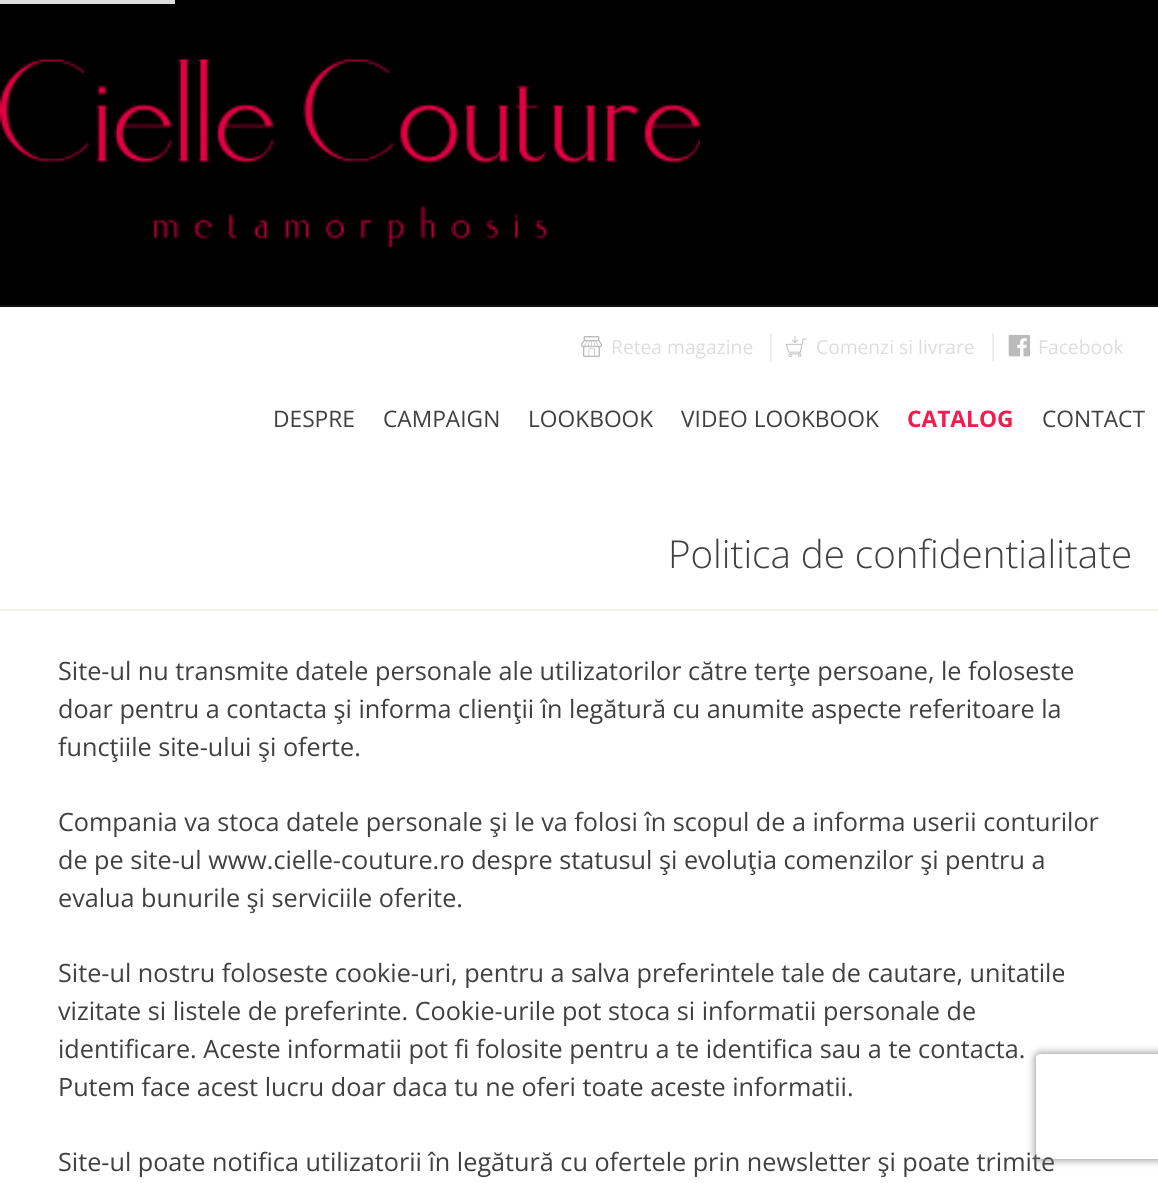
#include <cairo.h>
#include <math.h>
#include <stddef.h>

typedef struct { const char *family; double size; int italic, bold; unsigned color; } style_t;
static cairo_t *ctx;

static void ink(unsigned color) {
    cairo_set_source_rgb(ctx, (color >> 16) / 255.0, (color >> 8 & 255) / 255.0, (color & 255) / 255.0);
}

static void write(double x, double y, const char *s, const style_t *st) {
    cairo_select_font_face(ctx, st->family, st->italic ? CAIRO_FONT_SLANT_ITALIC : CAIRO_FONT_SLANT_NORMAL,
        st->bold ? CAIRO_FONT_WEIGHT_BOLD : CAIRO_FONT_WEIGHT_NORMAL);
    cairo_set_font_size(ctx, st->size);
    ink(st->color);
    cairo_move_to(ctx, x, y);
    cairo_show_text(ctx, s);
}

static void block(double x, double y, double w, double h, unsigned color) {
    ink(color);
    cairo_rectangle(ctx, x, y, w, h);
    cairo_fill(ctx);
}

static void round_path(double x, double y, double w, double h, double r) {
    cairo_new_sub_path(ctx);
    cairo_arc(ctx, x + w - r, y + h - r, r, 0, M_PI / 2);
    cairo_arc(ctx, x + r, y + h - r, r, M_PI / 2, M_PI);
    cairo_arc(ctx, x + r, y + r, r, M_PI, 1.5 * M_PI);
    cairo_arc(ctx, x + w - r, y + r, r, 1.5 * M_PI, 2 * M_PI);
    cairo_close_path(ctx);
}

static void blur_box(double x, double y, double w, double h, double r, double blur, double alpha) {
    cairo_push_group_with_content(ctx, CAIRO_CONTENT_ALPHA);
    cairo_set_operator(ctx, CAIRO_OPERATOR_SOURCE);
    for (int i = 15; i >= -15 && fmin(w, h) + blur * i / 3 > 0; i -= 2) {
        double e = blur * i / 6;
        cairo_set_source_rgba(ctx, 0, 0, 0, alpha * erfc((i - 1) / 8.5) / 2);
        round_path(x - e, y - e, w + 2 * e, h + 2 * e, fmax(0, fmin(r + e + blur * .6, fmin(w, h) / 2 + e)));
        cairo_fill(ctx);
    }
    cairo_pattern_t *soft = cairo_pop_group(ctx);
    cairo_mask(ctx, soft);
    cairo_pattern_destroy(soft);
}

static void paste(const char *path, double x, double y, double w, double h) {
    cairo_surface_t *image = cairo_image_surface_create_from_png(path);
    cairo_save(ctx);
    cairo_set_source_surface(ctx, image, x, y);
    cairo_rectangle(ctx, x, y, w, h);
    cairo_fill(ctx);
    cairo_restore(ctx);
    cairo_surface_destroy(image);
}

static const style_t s1 = {"Open Sans", 19.25, 0, 0, 0xdddddd};
static const style_t s2 = {"Open Sans", 22.75, 0, 0, 0x404040};
static const style_t s3 = {"Open Sans", 22.75, 0, 1, 0xef1d50};
static const style_t s4 = {"Open Sans Light", 38.5, 0, 0, 0x404040};
static const style_t s5 = {"Open Sans", 25.2, 0, 0, 0x404040};

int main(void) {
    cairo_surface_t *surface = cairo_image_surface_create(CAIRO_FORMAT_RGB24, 1158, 1183);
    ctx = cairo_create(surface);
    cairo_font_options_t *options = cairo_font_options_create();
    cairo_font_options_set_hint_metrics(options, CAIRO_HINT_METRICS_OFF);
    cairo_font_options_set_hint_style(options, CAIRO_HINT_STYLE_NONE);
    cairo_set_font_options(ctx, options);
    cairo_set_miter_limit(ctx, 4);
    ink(0xffffff);
    cairo_paint(ctx);
    block(0, 0, 1158, 305, 0x000000);
    block(0, 0, 175, 4, 0xdddddd);
    paste("pic1.png", 0, 59, 700, 188);
    block(0, 305, 1158, 2, 0x111111);
    block(770, 333, 2, 28, 0xeeeeee);
    paste("pic2.png", 581, 336, 21, 21);
    write(611, 354, "Retea magazine", &s1);
    block(992, 333, 2, 28, 0xeeeeee);
    paste("pic3.png", 785, 336, 22, 21);
    write(816, 354, "Comenzi si livrare", &s1);
    paste("pic4.png", 1008, 334, 23, 23);
    write(1038, 354, "Facebook", &s1);
    write(273, 427, "DESPRE", &s2);
    write(383, 427, "CAMPAIGN", &s2);
    write(528, 427, "LOOKBOOK", &s2);
    write(681, 427, "VIDEO LOOKBOOK", &s2);
    write(907, 427, "CATALOG", &s3);
    write(1042, 427, "CONTACT", &s2);
    block(0, 609, 1158, 2, 0xf4f1e9);
    write(668, 568, "Politica de confidentialitate", &s4);
    write(58, 680, "Site-ul nu transmite datele personale ale utilizatorilor către terţe persoane, le foloseste", &s5);
    write(58, 718, "doar pentru a contacta şi informa clienţii în legătură cu anumite aspecte referitoare la", &s5);
    write(58, 756, "funcţiile site-ului şi oferte.", &s5);
    write(58, 831, "Compania va stoca datele personale şi le va folosi în scopul de a informa userii conturilor", &s5);
    write(58, 869, "de pe site-ul www.cielle-couture.ro despre statusul şi evoluţia comenzilor şi pentru a", &s5);
    write(58, 907, "evalua bunurile şi serviciile oferite.", &s5);
    write(58, 982, "Site-ul nostru foloseste cookie-uri, pentru a salva preferintele tale de cautare, unitatile", &s5);
    write(58, 1020, "vizitate si listele de preferinte. Cookie-urile pot stoca si informatii personale de", &s5);
    write(58, 1058, "identificare. Aceste informatii pot fi folosite pentru a te identifica sau a te contacta.", &s5);
    write(58, 1096, "Putem face acest lucru doar daca tu ne oferi toate aceste informatii.", &s5);
    write(58, 1171, "Site-ul poate notifica utilizatorii în legătură cu ofertele prin newsletter şi poate trimite", &s5);
    cairo_save(ctx);
    cairo_set_fill_rule(ctx, CAIRO_FILL_RULE_EVEN_ODD);
    cairo_new_path(ctx);
    cairo_move_to(ctx, 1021, 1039);
    cairo_line_to(ctx, 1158, 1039);
    cairo_line_to(ctx, 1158, 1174);
    cairo_line_to(ctx, 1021, 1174);
    cairo_close_path(ctx);
    cairo_move_to(ctx, 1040, 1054);
    cairo_line_to(ctx, 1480, 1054);
    cairo_curve_to(ctx, 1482, 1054, 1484, 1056, 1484, 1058);
    cairo_line_to(ctx, 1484, 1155);
    cairo_curve_to(ctx, 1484, 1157, 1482, 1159, 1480, 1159);
    cairo_line_to(ctx, 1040, 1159);
    cairo_curve_to(ctx, 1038, 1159, 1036, 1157, 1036, 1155);
    cairo_line_to(ctx, 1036, 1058);
    cairo_curve_to(ctx, 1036, 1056, 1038, 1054, 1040, 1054);
    cairo_close_path(ctx);
    cairo_clip(ctx);
    ink(0x808080);
    blur_box(1036, 1054, 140, 105, 4, 4.5, 1);
    cairo_restore(ctx);
    cairo_surface_write_to_png(surface, "screenshot.png");
    cairo_font_options_destroy(options);
    cairo_destroy(ctx);
    cairo_surface_destroy(surface);
    return 0;
}
